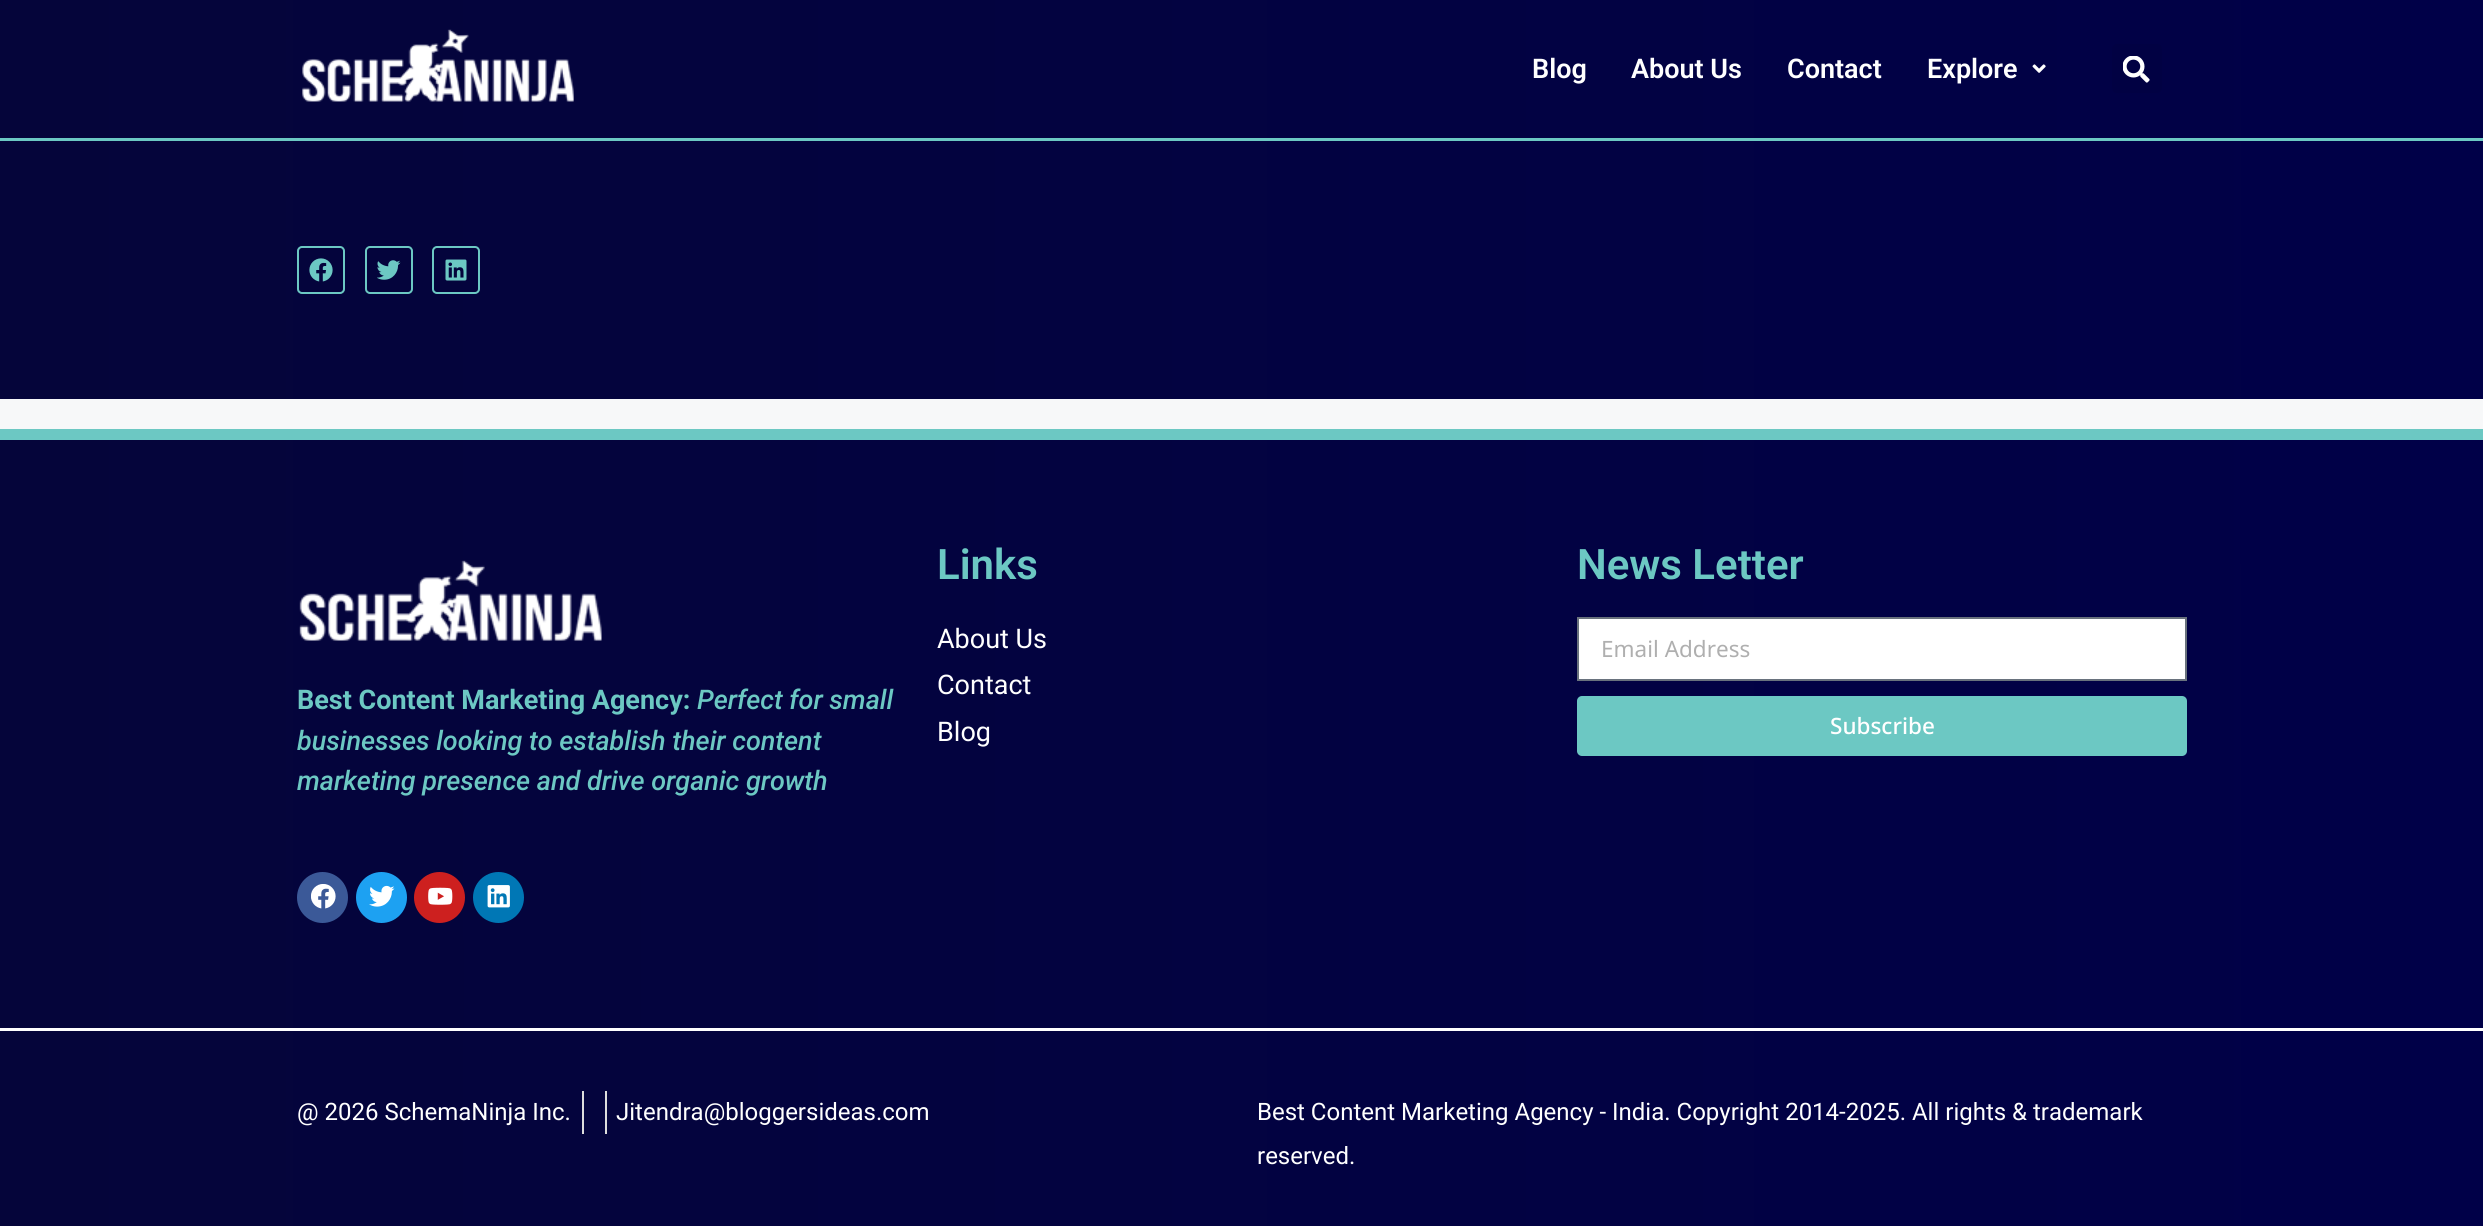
#include <cairo.h>
#include <math.h>
#include <stddef.h>

typedef struct { const char *family; double size; int italic, bold; unsigned color; } style_t;
static cairo_t *ctx;

static void ink(unsigned color) {
    cairo_set_source_rgb(ctx, (color >> 16) / 255.0, (color >> 8 & 255) / 255.0, (color & 255) / 255.0);
}

static void write(double x, double y, const char *s, const style_t *st) {
    cairo_select_font_face(ctx, st->family, st->italic ? CAIRO_FONT_SLANT_ITALIC : CAIRO_FONT_SLANT_NORMAL,
        st->bold ? CAIRO_FONT_WEIGHT_BOLD : CAIRO_FONT_WEIGHT_NORMAL);
    cairo_set_font_size(ctx, st->size);
    ink(st->color);
    cairo_move_to(ctx, x, y);
    cairo_show_text(ctx, s);
}

static void block(double x, double y, double w, double h, unsigned color) {
    ink(color);
    cairo_rectangle(ctx, x, y, w, h);
    cairo_fill(ctx);
}

static void round_path(double x, double y, double w, double h, double r) {
    cairo_new_sub_path(ctx);
    cairo_arc(ctx, x + w - r, y + h - r, r, 0, M_PI / 2);
    cairo_arc(ctx, x + r, y + h - r, r, M_PI / 2, M_PI);
    cairo_arc(ctx, x + r, y + r, r, M_PI, 1.5 * M_PI);
    cairo_arc(ctx, x + w - r, y + r, r, 1.5 * M_PI, 2 * M_PI);
    cairo_close_path(ctx);
}

static void paste(const char *path, double x, double y, double w, double h) {
    cairo_surface_t *image = cairo_image_surface_create_from_png(path);
    cairo_save(ctx);
    cairo_set_source_surface(ctx, image, x, y);
    cairo_rectangle(ctx, x, y, w, h);
    cairo_fill(ctx);
    cairo_restore(ctx);
    cairo_surface_destroy(image);
}

static const style_t s1 = {"Roboto SemiBold", 27, 0, 0, 0xffffff};
static const style_t s2 = {"Roboto", 27, 0, 1, 0x6cc8c3};
static const style_t s3 = {"Roboto Medium", 27, 1, 0, 0x6cc8c3};
static const style_t s4 = {"Roboto SemiBold", 42, 0, 0, 0x6cc8c3};
static const style_t s5 = {"Roboto", 27, 0, 0, 0xffffff};
static const style_t s6 = {"Noto Sans", 22.5, 0, 0, 0xafafaf};
static const style_t s7 = {"Noto Sans Medium", 22.5, 0, 0, 0xffffff};
static const style_t s8 = {"Roboto", 24, 0, 0, 0xffffff};

int main(void) {
    cairo_surface_t *surface = cairo_image_surface_create(CAIRO_FORMAT_RGB24, 2483, 1226);
    ctx = cairo_create(surface);
    cairo_font_options_t *options = cairo_font_options_create();
    cairo_font_options_set_hint_metrics(options, CAIRO_HINT_METRICS_OFF);
    cairo_font_options_set_hint_style(options, CAIRO_HINT_STYLE_NONE);
    cairo_set_font_options(ctx, options);
    cairo_set_miter_limit(ctx, 4);
    cairo_pattern_t *gradient;
    ink(0xf7f8f9);
    cairo_paint(ctx);
    gradient = cairo_pattern_create_linear(0, 69, 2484, 69);
    cairo_pattern_add_color_stop_rgba(gradient, 0, 0.02, 0.02, 0.227, 1);
    cairo_pattern_add_color_stop_rgba(gradient, 1, 0, 0, 0.282, 1);
    cairo_set_source(ctx, gradient);
    cairo_pattern_destroy(gradient);
    cairo_rectangle(ctx, 0, 0, 2483, 138);
    cairo_fill(ctx);
    block(0, 138, 2483, 3, 0x6cc8c3);
    paste("pic1.png", 302, 29, 272, 73);
    write(1532, 78, "Blog", &s1);
    write(1631, 78, "About Us", &s1);
    write(1787, 78, "Contact", &s1);
    write(1927, 78, "Explore", &s1);
    paste("pic2.png", 2032, 64, 14, 9);
    ink(0x010143);
    round_path(2112, 44, 50, 49, 5);
    cairo_fill(ctx);
    paste("pic3.png", 2123, 56, 27, 27);
    gradient = cairo_pattern_create_linear(0, 270, 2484, 270);
    cairo_pattern_add_color_stop_rgba(gradient, 0, 0.02, 0.02, 0.227, 1);
    cairo_pattern_add_color_stop_rgba(gradient, 1, 0, 0, 0.282, 1);
    cairo_set_source(ctx, gradient);
    cairo_pattern_destroy(gradient);
    cairo_rectangle(ctx, 0, 141, 2483, 258);
    cairo_fill(ctx);
    round_path(298, 247, 46, 46, 4);
    ink(0x6cc8c3);
    cairo_stroke(ctx);
    paste("pic4.png", 309, 258, 24, 24);
    round_path(366, 247, 46, 46, 4);
    cairo_stroke(ctx);
    paste("pic5.png", 377, 260, 24, 20);
    round_path(433, 247, 46, 46, 4);
    cairo_stroke(ctx);
    paste("pic6.png", 445, 259, 22, 22);
    gradient = cairo_pattern_create_linear(0, 734, 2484, 733);
    cairo_pattern_add_color_stop_rgba(gradient, 0, 0.02, 0.02, 0.227, 1);
    cairo_pattern_add_color_stop_rgba(gradient, 1, 0, 0, 0.282, 1);
    cairo_set_source(ctx, gradient);
    cairo_pattern_destroy(gradient);
    cairo_rectangle(ctx, 0, 440, 2483, 588);
    cairo_fill(ctx);
    block(0, 429, 2483, 11, 0x6cc8c3);
    paste("pic7.png", 299, 560, 303, 81);
    write(297, 709, "Best Content Marketing Agency:", &s2);
    write(697, 709, "Perfect for small", &s3);
    write(297, 750, "businesses looking to establish their content", &s3);
    write(297, 790, "marketing presence and drive organic growth", &s3);
    ink(0x3b5998);
    cairo_new_path(ctx);
    cairo_arc(ctx, 322.5, 897.5, 25.5, 0, 2 * M_PI);
    cairo_fill(ctx);
    paste("pic8.png", 311, 884, 25, 25);
    ink(0x1da1f2);
    cairo_arc(ctx, 381.5, 897.5, 25.5, 0, 2 * M_PI);
    cairo_fill(ctx);
    paste("pic9.png", 369, 885, 26, 22);
    ink(0xcd201f);
    cairo_arc(ctx, 439.5, 897.5, 25.5, 0, 2 * M_PI);
    cairo_fill(ctx);
    paste("pic10.png", 428, 887, 25, 18);
    ink(0x0077b5);
    cairo_arc(ctx, 498.5, 897.5, 25.5, 0, 2 * M_PI);
    cairo_fill(ctx);
    paste("pic11.png", 487, 885, 23, 23);
    write(937, 579, "Links", &s4);
    write(937, 648, "About Us", &s5);
    write(937, 694, "Contact", &s5);
    write(937, 741, "Blog", &s5);
    write(1577, 579, "News Letter", &s4);
    ink(0xffffff);
    cairo_rectangle(ctx, 1578, 618, 608, 62);
    cairo_fill_preserve(ctx);
    ink(0x69727d);
    cairo_stroke(ctx);
    write(1601, 657, "Email Address", &s6);
    ink(0x6cc8c3);
    round_path(1577, 696, 610, 60, 5);
    cairo_fill(ctx);
    write(1830, 734, "Subscribe", &s7);
    gradient = cairo_pattern_create_linear(0, 1134, 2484, 1134);
    cairo_pattern_add_color_stop_rgba(gradient, 0, 0.02, 0.02, 0.227, 1);
    cairo_pattern_add_color_stop_rgba(gradient, 1, 0, 0, 0.282, 1);
    cairo_set_source(ctx, gradient);
    cairo_pattern_destroy(gradient);
    cairo_rectangle(ctx, 0, 1031, 2483, 195);
    cairo_fill(ctx);
    block(0, 1028, 2483, 3, 0xffffff);
    write(297, 1120, "@ 2026 SchemaNinja Inc.", &s8);
    block(582, 1091, 2, 43, 0xdddddd);
    block(605, 1091, 2, 43, 0xdddddd);
    write(616, 1120, "Jitendra@bloggersideas.com", &s8);
    write(1257, 1120, "Best Content Marketing Agency - India. Copyright 2014-2025. All rights & trademark", &s8);
    write(1257, 1164, "reserved.", &s8);
    cairo_surface_write_to_png(surface, "screenshot.png");
    cairo_font_options_destroy(options);
    cairo_destroy(ctx);
    cairo_surface_destroy(surface);
    return 0;
}
